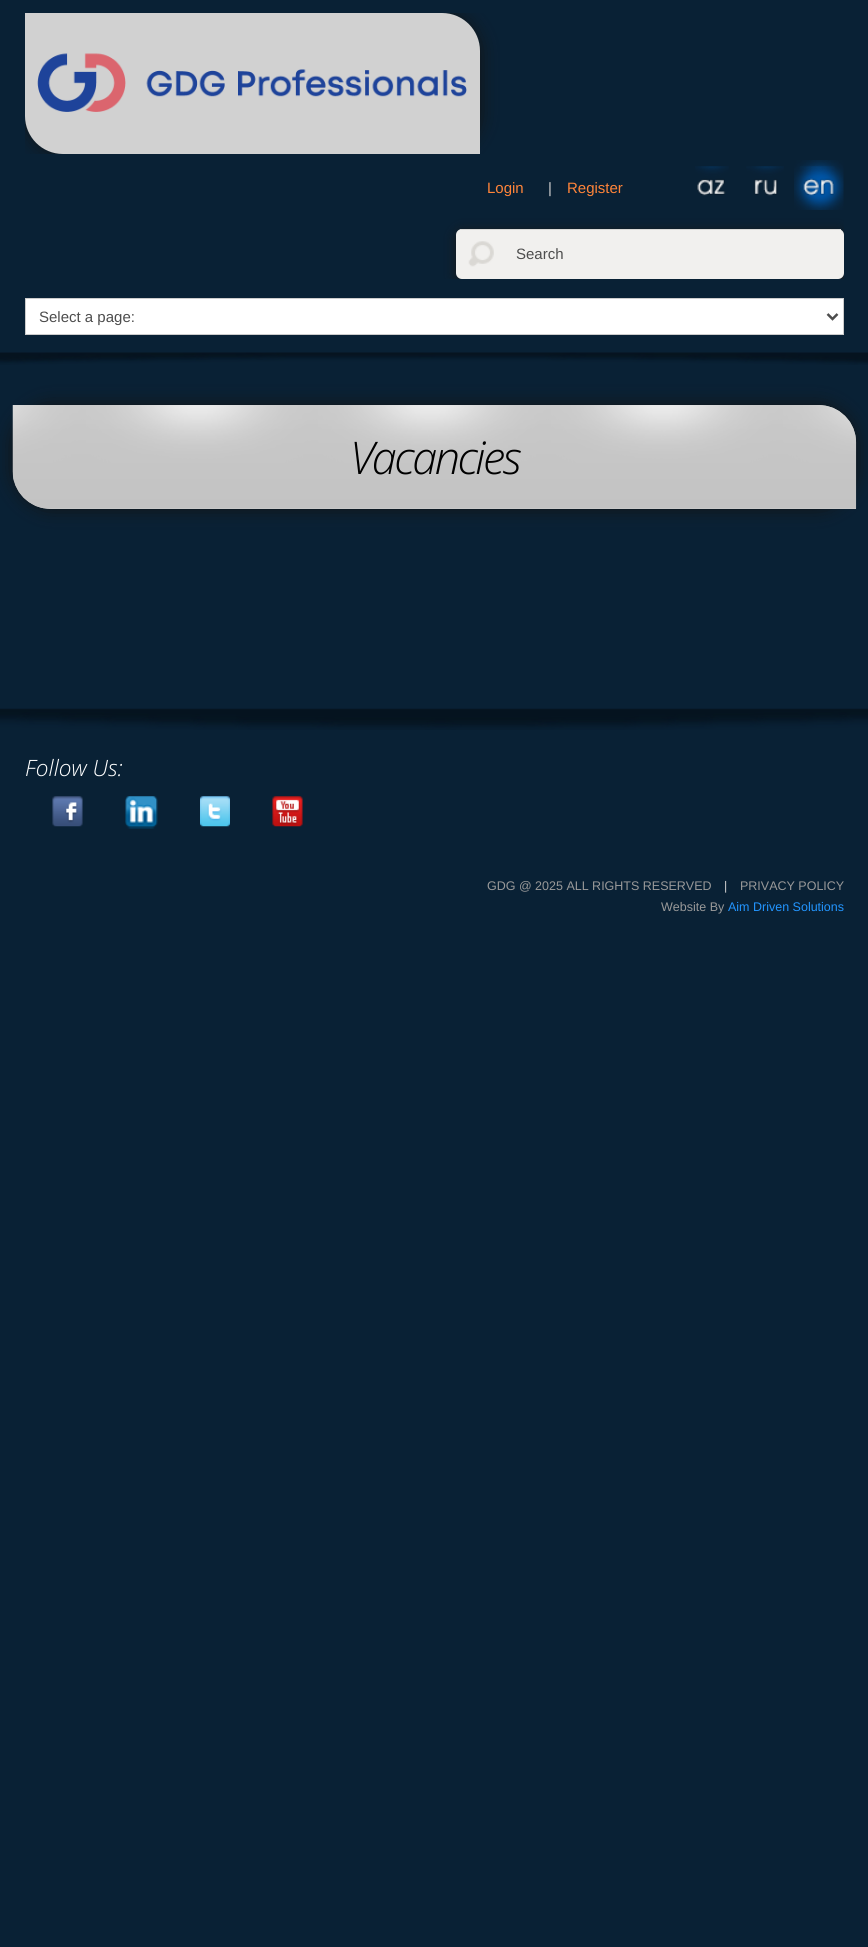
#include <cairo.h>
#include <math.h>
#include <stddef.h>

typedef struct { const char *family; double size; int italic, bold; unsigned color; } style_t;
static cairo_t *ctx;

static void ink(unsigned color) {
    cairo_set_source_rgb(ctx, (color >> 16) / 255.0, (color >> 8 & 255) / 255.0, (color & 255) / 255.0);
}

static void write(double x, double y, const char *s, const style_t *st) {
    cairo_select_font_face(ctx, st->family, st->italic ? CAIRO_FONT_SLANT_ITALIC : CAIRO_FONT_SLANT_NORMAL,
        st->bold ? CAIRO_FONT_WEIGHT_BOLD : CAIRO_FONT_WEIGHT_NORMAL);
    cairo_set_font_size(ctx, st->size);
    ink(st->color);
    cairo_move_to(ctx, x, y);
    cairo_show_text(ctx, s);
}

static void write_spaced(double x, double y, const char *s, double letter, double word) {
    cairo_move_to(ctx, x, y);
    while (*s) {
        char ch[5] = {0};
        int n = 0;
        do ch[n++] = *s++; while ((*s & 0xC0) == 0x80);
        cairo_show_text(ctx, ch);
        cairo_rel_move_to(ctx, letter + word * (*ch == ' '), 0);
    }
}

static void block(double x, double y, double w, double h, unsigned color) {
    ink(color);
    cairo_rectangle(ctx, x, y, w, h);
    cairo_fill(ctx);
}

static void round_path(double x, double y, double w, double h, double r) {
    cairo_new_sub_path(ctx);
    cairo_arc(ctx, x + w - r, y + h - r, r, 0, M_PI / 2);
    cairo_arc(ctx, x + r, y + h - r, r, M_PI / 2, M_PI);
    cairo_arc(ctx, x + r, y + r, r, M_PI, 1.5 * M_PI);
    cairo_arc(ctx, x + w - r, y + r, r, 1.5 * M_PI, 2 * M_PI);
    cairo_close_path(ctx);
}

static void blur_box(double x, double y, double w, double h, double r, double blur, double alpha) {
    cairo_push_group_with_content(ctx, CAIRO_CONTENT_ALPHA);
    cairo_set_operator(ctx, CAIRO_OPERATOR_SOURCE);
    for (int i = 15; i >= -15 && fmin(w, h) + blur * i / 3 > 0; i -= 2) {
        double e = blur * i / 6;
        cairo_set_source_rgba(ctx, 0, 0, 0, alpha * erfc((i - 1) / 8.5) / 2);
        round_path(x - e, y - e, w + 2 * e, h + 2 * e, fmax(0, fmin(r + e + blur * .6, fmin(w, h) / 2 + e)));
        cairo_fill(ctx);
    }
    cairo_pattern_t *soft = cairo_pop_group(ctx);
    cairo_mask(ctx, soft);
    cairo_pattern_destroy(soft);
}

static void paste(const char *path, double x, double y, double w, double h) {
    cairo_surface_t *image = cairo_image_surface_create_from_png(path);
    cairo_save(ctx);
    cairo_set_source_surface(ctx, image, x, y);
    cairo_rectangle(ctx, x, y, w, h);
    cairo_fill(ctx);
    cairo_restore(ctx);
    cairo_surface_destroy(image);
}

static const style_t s1 = {"Liberation Sans", 15, 0, 0, 0xff8439};
static const style_t s2 = {"Liberation Sans", 15, 0, 0, 0xcecece};
static const style_t s3 = {"Liberation Sans", 15, 0, 0, 0x4d4d4d};
static const style_t s4 = {"Open Sans Light", 22.5, 1, 0, 0xffffff};
static const style_t s5 = {"Liberation Sans", 12.5, 0, 0, 0x999999};
static const style_t s6 = {"Liberation Sans", 12.5, 0, 0, 0xcecece};
static const style_t s7 = {"Liberation Sans", 12.5, 0, 0, 0x2295ff};

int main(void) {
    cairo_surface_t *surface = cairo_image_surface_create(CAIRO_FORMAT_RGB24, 868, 1947);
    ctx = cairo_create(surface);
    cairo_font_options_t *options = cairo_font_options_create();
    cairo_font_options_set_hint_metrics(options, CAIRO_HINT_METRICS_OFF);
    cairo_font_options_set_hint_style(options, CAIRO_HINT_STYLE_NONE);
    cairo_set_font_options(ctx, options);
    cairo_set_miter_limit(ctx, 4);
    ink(0x092135);
    cairo_paint(ctx);
    paste("pic1.png", 0, 352, 868, 13);
    cairo_save(ctx);
    cairo_rectangle(ctx, 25, 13, 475, 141);
    cairo_clip(ctx);
    ink(0x131313);
    blur_box(25, 13, 455, 141, 38, 9.5, 1);
    cairo_restore(ctx);
    ink(0xd1d1d1);
    cairo_new_path(ctx);
    cairo_move_to(ctx, 25, 13);
    cairo_line_to(ctx, 442, 13);
    cairo_curve_to(ctx, 463, 13, 480, 30, 480, 51);
    cairo_line_to(ctx, 480, 154);
    cairo_line_to(ctx, 63, 154);
    cairo_curve_to(ctx, 42, 154, 25, 137, 25, 116);
    cairo_close_path(ctx);
    cairo_fill(ctx);
    paste("pic2.png", 37, 53, 430, 59);
    write(487, 193, "Login", &s1);
    write(548, 193, "|", &s2);
    write(567, 193, "Register", &s1);
    paste("pic3.png", 695, 166, 34, 30);
    paste("pic4.png", 746, 166, 38, 30);
    paste("pic5.png", 794, 160, 50, 50);
    paste("pic6.png", 800, 166, 35, 30);
    cairo_save(ctx);
    cairo_rectangle(ctx, 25, 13, 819, 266);
    cairo_clip(ctx);
    ink(0x181818);
    blur_box(456, 231, 388, 50, 6, 6, 1);
    cairo_restore(ctx);
    ink(0xf1f0ee);
    round_path(456, 229, 388, 50, 6);
    cairo_fill(ctx);
    block(460, 229, 381, 1, 0xd8d8d6);
    paste("pic7.png", 468, 241, 26, 26);
    write(516, 259, "Search", &s3);
    ink(0xffffff);
    cairo_rectangle(ctx, 25.5, 298.5, 818, 36);
    cairo_fill_preserve(ctx);
    ink(0xcccccc);
    cairo_set_line_width(ctx, 1);
    cairo_stroke(ctx);
    cairo_new_path(ctx);
    cairo_move_to(ctx, 827.5, 314);
    cairo_line_to(ctx, 832.5, 319);
    cairo_line_to(ctx, 837.5, 314);
    ink(0x4d4d4d);
    cairo_set_line_width(ctx, 2.5);
    cairo_stroke(ctx);
    write(39, 322, "Select a page:", &s3);
    paste("pic8.png", 0, 708, 868, 22);
    ink(0x131313);
    blur_box(13, 405, 843, 104, 38, 9.5, 1);
    ink(0xd1d1d1);
    cairo_new_path(ctx);
    cairo_move_to(ctx, 13, 405);
    cairo_line_to(ctx, 818, 405);
    cairo_curve_to(ctx, 839, 405, 856, 422, 856, 443);
    cairo_line_to(ctx, 856, 509);
    cairo_line_to(ctx, 51, 509);
    cairo_curve_to(ctx, 30, 509, 13, 492, 13, 471);
    cairo_close_path(ctx);
    cairo_fill(ctx);
    paste("pic9.png", 12, 405, 845, 104);
    cairo_select_font_face(ctx, "Open Sans Light", CAIRO_FONT_SLANT_ITALIC, CAIRO_FONT_WEIGHT_NORMAL);
    cairo_set_font_size(ctx, 45);
    ink(0x000000);
    write_spaced(350, 474, "Vacancies", -2.5, 0);
    write(25, 776, "Follow Us:", &s4);
    paste("pic10.png", 52, 796, 31, 31);
    paste("pic11.png", 125, 796, 33, 33);
    paste("pic12.png", 200, 796, 30, 31);
    paste("pic13.png", 272, 796, 31, 31);
    write(487, 890, "GDG @ 2025 ALL RIGHTS RESERVED", &s5);
    write(724, 890, "|", &s6);
    write(740, 890, "PRIVACY POLICY", &s5);
    write(661, 911, "Website By", &s5);
    write(728, 911, "Aim Driven Solutions", &s7);
    cairo_surface_write_to_png(surface, "screenshot.png");
    cairo_font_options_destroy(options);
    cairo_destroy(ctx);
    cairo_surface_destroy(surface);
    return 0;
}
